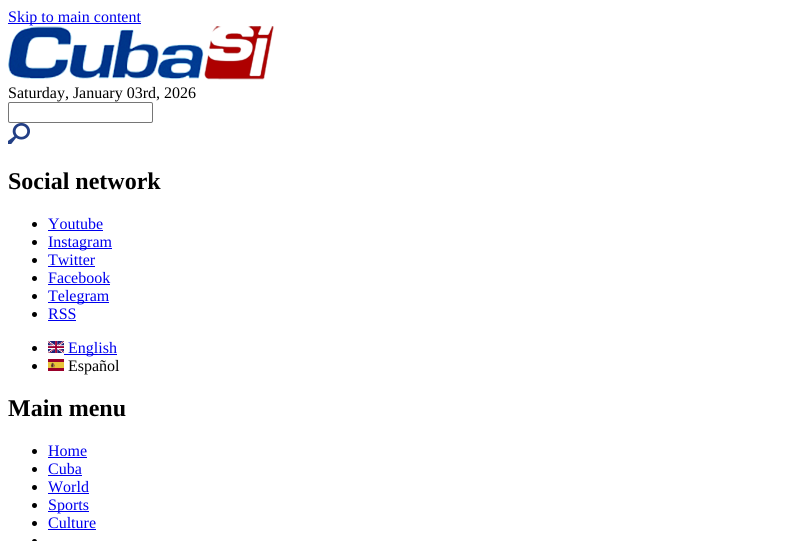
#include <cairo.h>
#include <math.h>
#include <stddef.h>

typedef struct { const char *family; double size; int italic, bold; unsigned color; } style_t;
static cairo_t *ctx;

static void ink(unsigned color) {
    cairo_set_source_rgb(ctx, (color >> 16) / 255.0, (color >> 8 & 255) / 255.0, (color & 255) / 255.0);
}

static void write(double x, double y, const char *s, const style_t *st) {
    cairo_select_font_face(ctx, st->family, st->italic ? CAIRO_FONT_SLANT_ITALIC : CAIRO_FONT_SLANT_NORMAL,
        st->bold ? CAIRO_FONT_WEIGHT_BOLD : CAIRO_FONT_WEIGHT_NORMAL);
    cairo_set_font_size(ctx, st->size);
    ink(st->color);
    cairo_move_to(ctx, x, y);
    cairo_show_text(ctx, s);
}

static void block(double x, double y, double w, double h, unsigned color) {
    ink(color);
    cairo_rectangle(ctx, x, y, w, h);
    cairo_fill(ctx);
}

static void round_path(double x, double y, double w, double h, double r) {
    cairo_new_sub_path(ctx);
    cairo_arc(ctx, x + w - r, y + h - r, r, 0, M_PI / 2);
    cairo_arc(ctx, x + r, y + h - r, r, M_PI / 2, M_PI);
    cairo_arc(ctx, x + r, y + r, r, M_PI, 1.5 * M_PI);
    cairo_arc(ctx, x + w - r, y + r, r, 1.5 * M_PI, 2 * M_PI);
    cairo_close_path(ctx);
}

static void paste(const char *path, double x, double y, double w, double h) {
    cairo_surface_t *image = cairo_image_surface_create_from_png(path);
    cairo_save(ctx);
    cairo_set_source_surface(ctx, image, x, y);
    cairo_rectangle(ctx, x, y, w, h);
    cairo_fill(ctx);
    cairo_restore(ctx);
    cairo_surface_destroy(image);
}

static const style_t s1 = {"Liberation Serif", 16, 0, 0, 0x0000ee};
static const style_t s2 = {"Liberation Serif", 16, 0, 0, 0x000000};
static const style_t s3 = {"Liberation Serif", 24, 0, 1, 0x000000};

int main(void) {
    cairo_surface_t *surface = cairo_image_surface_create(CAIRO_FORMAT_RGB24, 799, 541);
    ctx = cairo_create(surface);
    cairo_font_options_t *options = cairo_font_options_create();
    cairo_font_options_set_hint_metrics(options, CAIRO_HINT_METRICS_OFF);
    cairo_font_options_set_hint_style(options, CAIRO_HINT_STYLE_NONE);
    cairo_set_font_options(ctx, options);
    cairo_set_miter_limit(ctx, 4);
    ink(0xffffff);
    cairo_paint(ctx);
    block(8, 23, 133, 1, 0x0000ee);
    write(8, 22, "Skip to main content", &s1);
    paste("pic1.png", 8, 26, 266, 54);
    write(8, 98, "Saturday, January 03rd, 2026", &s2);
    round_path(8.5, 102.5, 144, 20, 1.5);
    ink(0x767676);
    cairo_set_line_width(ctx, 1);
    cairo_stroke(ctx);
    paste("pic2.png", 8, 123, 22, 21);
    write(8, 189, "Social network", &s3);
    cairo_new_path(ctx);
    cairo_arc(ctx, 34.5, 224.5, 2.5, 0, 2 * M_PI);
    cairo_fill(ctx);
    write(48, 229, "Youtube", &s1);
    block(48, 230, 55, 1, 0x0000ee);
    ink(0x000000);
    cairo_new_path(ctx);
    cairo_arc(ctx, 34.5, 242.5, 2.5, 0, 2 * M_PI);
    cairo_fill(ctx);
    block(48, 248, 64, 1, 0x0000ee);
    write(48, 247, "Instagram", &s1);
    ink(0x000000);
    cairo_new_path(ctx);
    cairo_arc(ctx, 34.5, 260.5, 2.5, 0, 2 * M_PI);
    cairo_fill(ctx);
    write(48, 265, "Twitter", &s1);
    block(48, 266, 47, 1, 0x0000ee);
    ink(0x000000);
    cairo_new_path(ctx);
    cairo_arc(ctx, 34.5, 278.5, 2.5, 0, 2 * M_PI);
    cairo_fill(ctx);
    write(48, 283, "Facebook", &s1);
    block(48, 284, 62, 1, 0x0000ee);
    ink(0x000000);
    cairo_new_path(ctx);
    cairo_arc(ctx, 34.5, 296.5, 2.5, 0, 2 * M_PI);
    cairo_fill(ctx);
    block(48, 302, 61, 1, 0x0000ee);
    write(48, 301, "Telegram", &s1);
    ink(0x000000);
    cairo_new_path(ctx);
    cairo_arc(ctx, 34.5, 314.5, 2.5, 0, 2 * M_PI);
    cairo_fill(ctx);
    write(48, 319, "RSS", &s1);
    block(48, 320, 28, 1, 0x0000ee);
    ink(0x000000);
    cairo_new_path(ctx);
    cairo_arc(ctx, 34.5, 348.5, 2.5, 0, 2 * M_PI);
    cairo_fill(ctx);
    paste("pic3.png", 48, 341, 16, 12);
    block(64, 354, 53, 1, 0x0000ee);
    write(68, 353, "English", &s1);
    ink(0x000000);
    cairo_new_path(ctx);
    cairo_arc(ctx, 34.5, 366.5, 2.5, 0, 2 * M_PI);
    cairo_fill(ctx);
    paste("pic4.png", 48, 359, 16, 12);
    write(68, 371, "Español", &s2);
    write(8, 416, "Main menu", &s3);
    cairo_new_path(ctx);
    cairo_arc(ctx, 34.5, 451.5, 2.5, 0, 2 * M_PI);
    cairo_fill(ctx);
    write(48, 456, "Home", &s1);
    block(48, 457, 39, 1, 0x0000ee);
    ink(0x000000);
    cairo_new_path(ctx);
    cairo_arc(ctx, 34.5, 469.5, 2.5, 0, 2 * M_PI);
    cairo_fill(ctx);
    write(48, 474, "Cuba", &s1);
    block(48, 475, 34, 1, 0x0000ee);
    ink(0x000000);
    cairo_new_path(ctx);
    cairo_arc(ctx, 34.5, 487.5, 2.5, 0, 2 * M_PI);
    cairo_fill(ctx);
    write(48, 492, "World", &s1);
    block(48, 493, 41, 1, 0x0000ee);
    ink(0x000000);
    cairo_new_path(ctx);
    cairo_arc(ctx, 34.5, 505.5, 2.5, 0, 2 * M_PI);
    cairo_fill(ctx);
    block(48, 511, 41, 1, 0x0000ee);
    write(48, 510, "Sports", &s1);
    ink(0x000000);
    cairo_new_path(ctx);
    cairo_arc(ctx, 34.5, 523.5, 2.5, 0, 2 * M_PI);
    cairo_fill(ctx);
    write(48, 528, "Culture", &s1);
    block(48, 529, 48, 1, 0x0000ee);
    ink(0x000000);
    cairo_new_path(ctx);
    cairo_arc(ctx, 34.5, 541.5, 2.5, 0, 2 * M_PI);
    cairo_fill(ctx);
    cairo_surface_write_to_png(surface, "screenshot.png");
    cairo_font_options_destroy(options);
    cairo_destroy(ctx);
    cairo_surface_destroy(surface);
    return 0;
}
